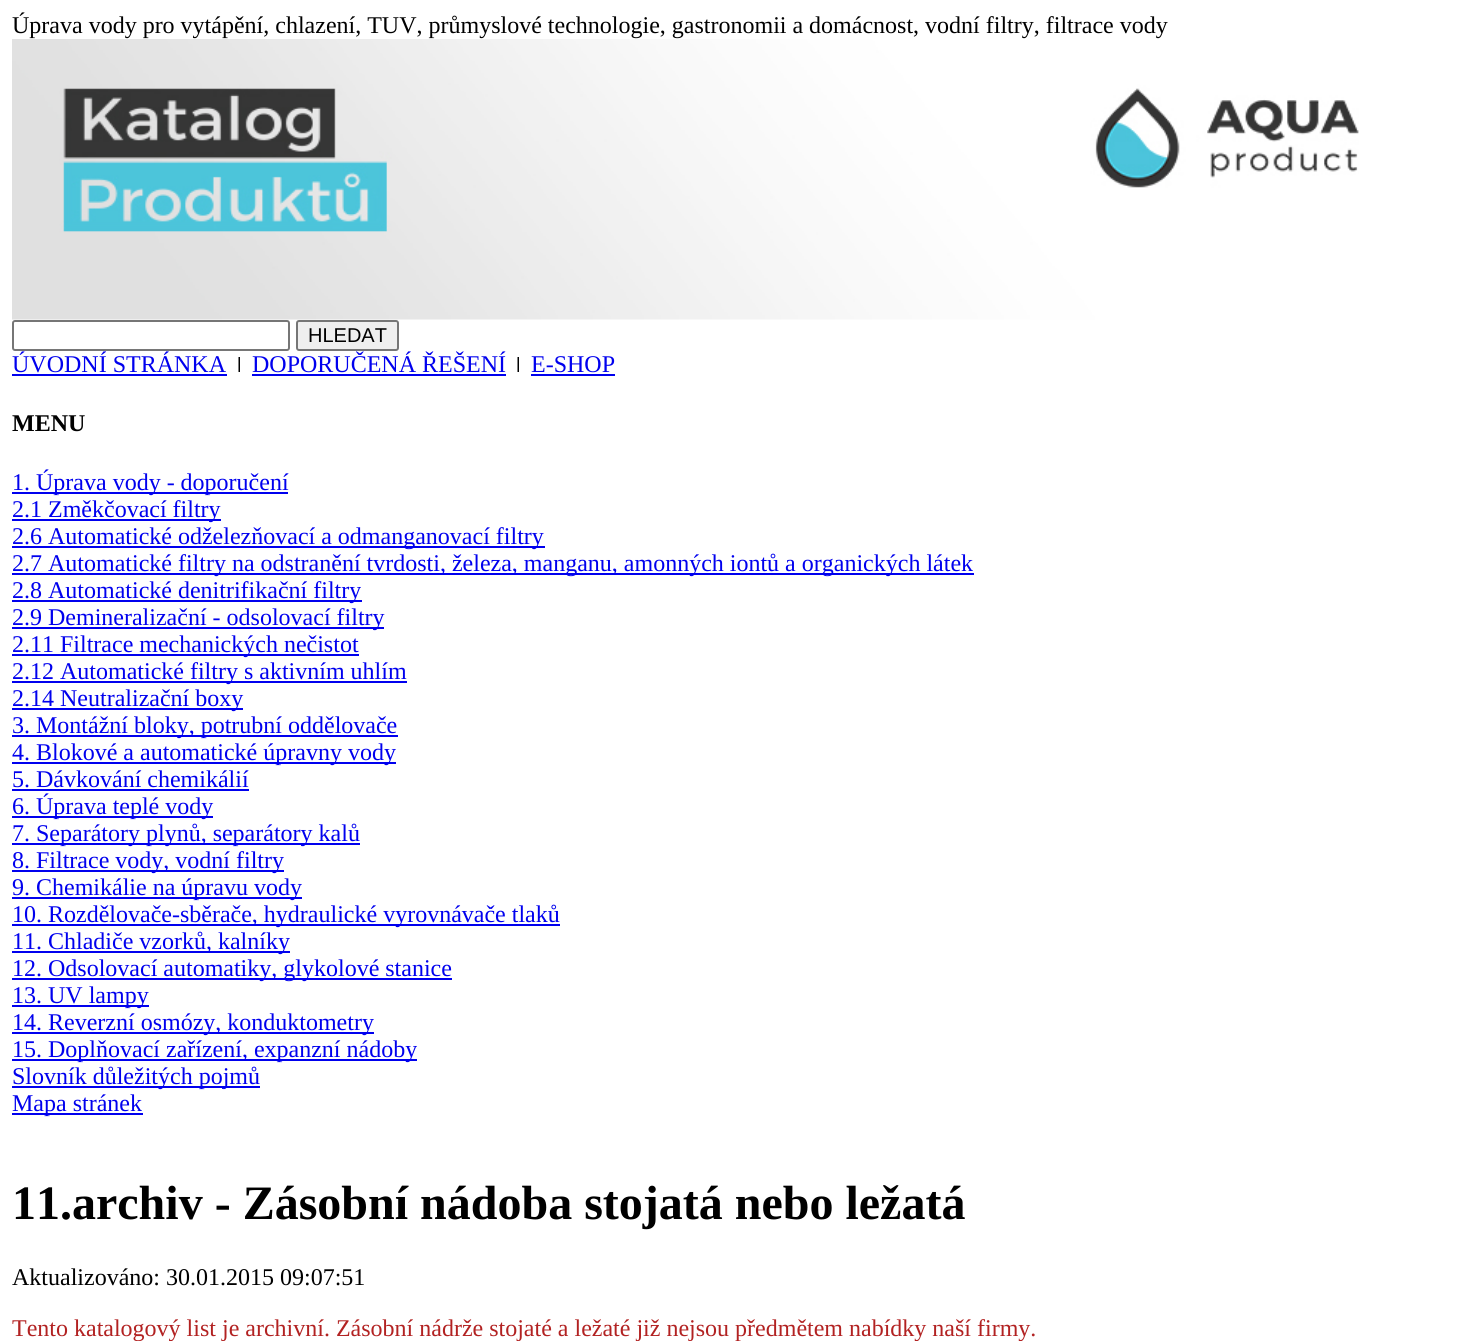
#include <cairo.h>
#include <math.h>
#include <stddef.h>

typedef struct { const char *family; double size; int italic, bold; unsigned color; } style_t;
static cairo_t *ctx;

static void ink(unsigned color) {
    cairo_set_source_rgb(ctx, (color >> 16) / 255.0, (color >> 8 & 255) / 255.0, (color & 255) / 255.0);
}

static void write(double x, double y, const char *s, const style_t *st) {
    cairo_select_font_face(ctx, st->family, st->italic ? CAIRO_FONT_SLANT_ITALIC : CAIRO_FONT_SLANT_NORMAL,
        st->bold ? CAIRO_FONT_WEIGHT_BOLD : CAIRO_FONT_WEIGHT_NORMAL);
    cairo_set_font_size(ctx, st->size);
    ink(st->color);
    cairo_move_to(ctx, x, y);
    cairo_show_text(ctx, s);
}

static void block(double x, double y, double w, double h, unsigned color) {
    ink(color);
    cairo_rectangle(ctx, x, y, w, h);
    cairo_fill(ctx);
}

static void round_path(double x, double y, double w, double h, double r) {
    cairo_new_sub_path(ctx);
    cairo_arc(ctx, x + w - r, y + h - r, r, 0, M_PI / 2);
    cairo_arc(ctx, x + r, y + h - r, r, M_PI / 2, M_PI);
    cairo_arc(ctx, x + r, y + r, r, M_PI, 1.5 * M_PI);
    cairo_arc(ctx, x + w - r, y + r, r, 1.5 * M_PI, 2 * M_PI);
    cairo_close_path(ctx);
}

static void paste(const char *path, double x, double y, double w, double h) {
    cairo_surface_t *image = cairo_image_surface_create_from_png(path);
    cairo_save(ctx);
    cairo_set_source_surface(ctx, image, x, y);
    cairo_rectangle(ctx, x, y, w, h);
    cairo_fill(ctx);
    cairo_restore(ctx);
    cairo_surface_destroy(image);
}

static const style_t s1 = {"Liberation Serif", 24, 0, 0, 0x000000};
static const style_t s2 = {"Liberation Sans", 20, 0, 0, 0x000000};
static const style_t s3 = {"Liberation Serif", 24, 0, 0, 0x0000ee};
static const style_t s4 = {"Liberation Serif", 24, 0, 1, 0x000000};
static const style_t s5 = {"Liberation Serif", 48, 0, 1, 0x000000};
static const style_t s6 = {"Liberation Serif", 24, 0, 0, 0xb22222};

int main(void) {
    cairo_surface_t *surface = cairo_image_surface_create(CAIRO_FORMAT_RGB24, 1469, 1341);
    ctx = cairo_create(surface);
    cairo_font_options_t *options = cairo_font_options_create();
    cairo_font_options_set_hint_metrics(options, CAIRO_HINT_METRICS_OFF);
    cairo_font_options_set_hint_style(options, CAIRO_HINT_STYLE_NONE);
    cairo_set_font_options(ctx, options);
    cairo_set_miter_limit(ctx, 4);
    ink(0xffffff);
    cairo_paint(ctx);
    write(12, 33, "Úprava vody pro vytápění, chlazení, TUV, průmyslové technologie, gastronomii a domácnost, vodní filtry, filtrace vody", &s1);
    paste("pic1.png", 12, 39, 1347, 281);
    round_path(13, 321, 276, 29, 2);
    ink(0x767676);
    cairo_stroke(ctx);
    ink(0xefefef);
    round_path(297, 321, 101, 29, 2);
    cairo_fill_preserve(ctx);
    ink(0x767676);
    cairo_stroke(ctx);
    write(308, 342, "HLEDAT", &s2);
    write(12, 372, "ÚVODNÍ STRÁNKA", &s3);
    block(12, 374, 215, 2, 0x0000ee);
    paste("pic2.png", 238, 357, 2, 15);
    write(252, 372, "DOPORUČENÁ ŘEŠENÍ", &s3);
    block(252, 374, 254, 2, 0x0000ee);
    paste("pic2.png", 517, 357, 2, 15);
    write(531, 372, "E-SHOP", &s3);
    block(531, 374, 84, 2, 0x0000ee);
    write(12, 431, "MENU", &s4);
    block(12, 492, 276, 2, 0x0000ee);
    write(12, 490, "1. Úprava vody - doporučení", &s3);
    block(12, 519, 209, 2, 0x0000ee);
    write(12, 517, "2.1 Změkčovací filtry", &s3);
    block(12, 546, 533, 2, 0x0000ee);
    write(12, 544, "2.6 Automatické odželezňovací a odmanganovací filtry", &s3);
    block(12, 573, 962, 2, 0x0000ee);
    write(12, 571, "2.7 Automatické filtry na odstranění tvrdosti, železa, manganu, amonných iontů a organických látek", &s3);
    block(12, 600, 350, 2, 0x0000ee);
    write(12, 598, "2.8 Automatické denitrifikační filtry", &s3);
    block(12, 627, 372, 2, 0x0000ee);
    write(12, 625, "2.9 Demineralizační - odsolovací filtry", &s3);
    block(12, 654, 347, 2, 0x0000ee);
    write(12, 652, "2.11 Filtrace mechanických nečistot", &s3);
    block(12, 681, 395, 2, 0x0000ee);
    write(12, 679, "2.12 Automatické filtry s aktivním uhlím", &s3);
    block(12, 708, 231, 2, 0x0000ee);
    write(12, 706, "2.14 Neutralizační boxy", &s3);
    block(12, 735, 386, 2, 0x0000ee);
    write(12, 733, "3. Montážní bloky, potrubní oddělovače", &s3);
    block(12, 762, 384, 2, 0x0000ee);
    write(12, 760, "4. Blokové a automatické úpravny vody", &s3);
    write(12, 787, "5. Dávkování chemikálií", &s3);
    block(12, 789, 237, 2, 0x0000ee);
    block(12, 816, 201, 2, 0x0000ee);
    write(12, 814, "6. Úprava teplé vody", &s3);
    block(12, 843, 348, 2, 0x0000ee);
    write(12, 841, "7. Separátory plynů, separátory kalů", &s3);
    block(12, 870, 272, 2, 0x0000ee);
    write(12, 868, "8. Filtrace vody, vodní filtry", &s3);
    block(12, 897, 290, 2, 0x0000ee);
    write(12, 895, "9. Chemikálie na úpravu vody", &s3);
    block(12, 924, 548, 2, 0x0000ee);
    write(12, 922, "10. Rozdělovače-sběrače, hydraulické vyrovnávače tlaků", &s3);
    block(12, 951, 278, 2, 0x0000ee);
    write(12, 949, "11. Chladiče vzorků, kalníky", &s3);
    block(12, 978, 440, 2, 0x0000ee);
    write(12, 976, "12. Odsolovací automatiky, glykolové stanice", &s3);
    block(12, 1005, 137, 2, 0x0000ee);
    write(12, 1003, "13. UV lampy", &s3);
    block(12, 1032, 362, 2, 0x0000ee);
    write(12, 1030, "14. Reverzní osmózy, konduktometry", &s3);
    block(12, 1059, 405, 2, 0x0000ee);
    write(12, 1057, "15. Doplňovací zařízení, expanzní nádoby", &s3);
    block(12, 1086, 248, 2, 0x0000ee);
    write(12, 1084, "Slovník důležitých pojmů", &s3);
    block(12, 1113, 131, 2, 0x0000ee);
    write(12, 1111, "Mapa stránek", &s3);
    write(12, 1219, "11.archiv - Zásobní nádoba stojatá nebo ležatá", &s5);
    write(12, 1285, "Aktualizováno: 30.01.2015 09:07:51", &s1);
    write(12, 1336, "Tento katalogový list je archivní. Zásobní nádrže stojaté a ležaté již nejsou předmětem nabídky naší firmy.", &s6);
    cairo_surface_write_to_png(surface, "screenshot.png");
    cairo_font_options_destroy(options);
    cairo_destroy(ctx);
    cairo_surface_destroy(surface);
    return 0;
}
